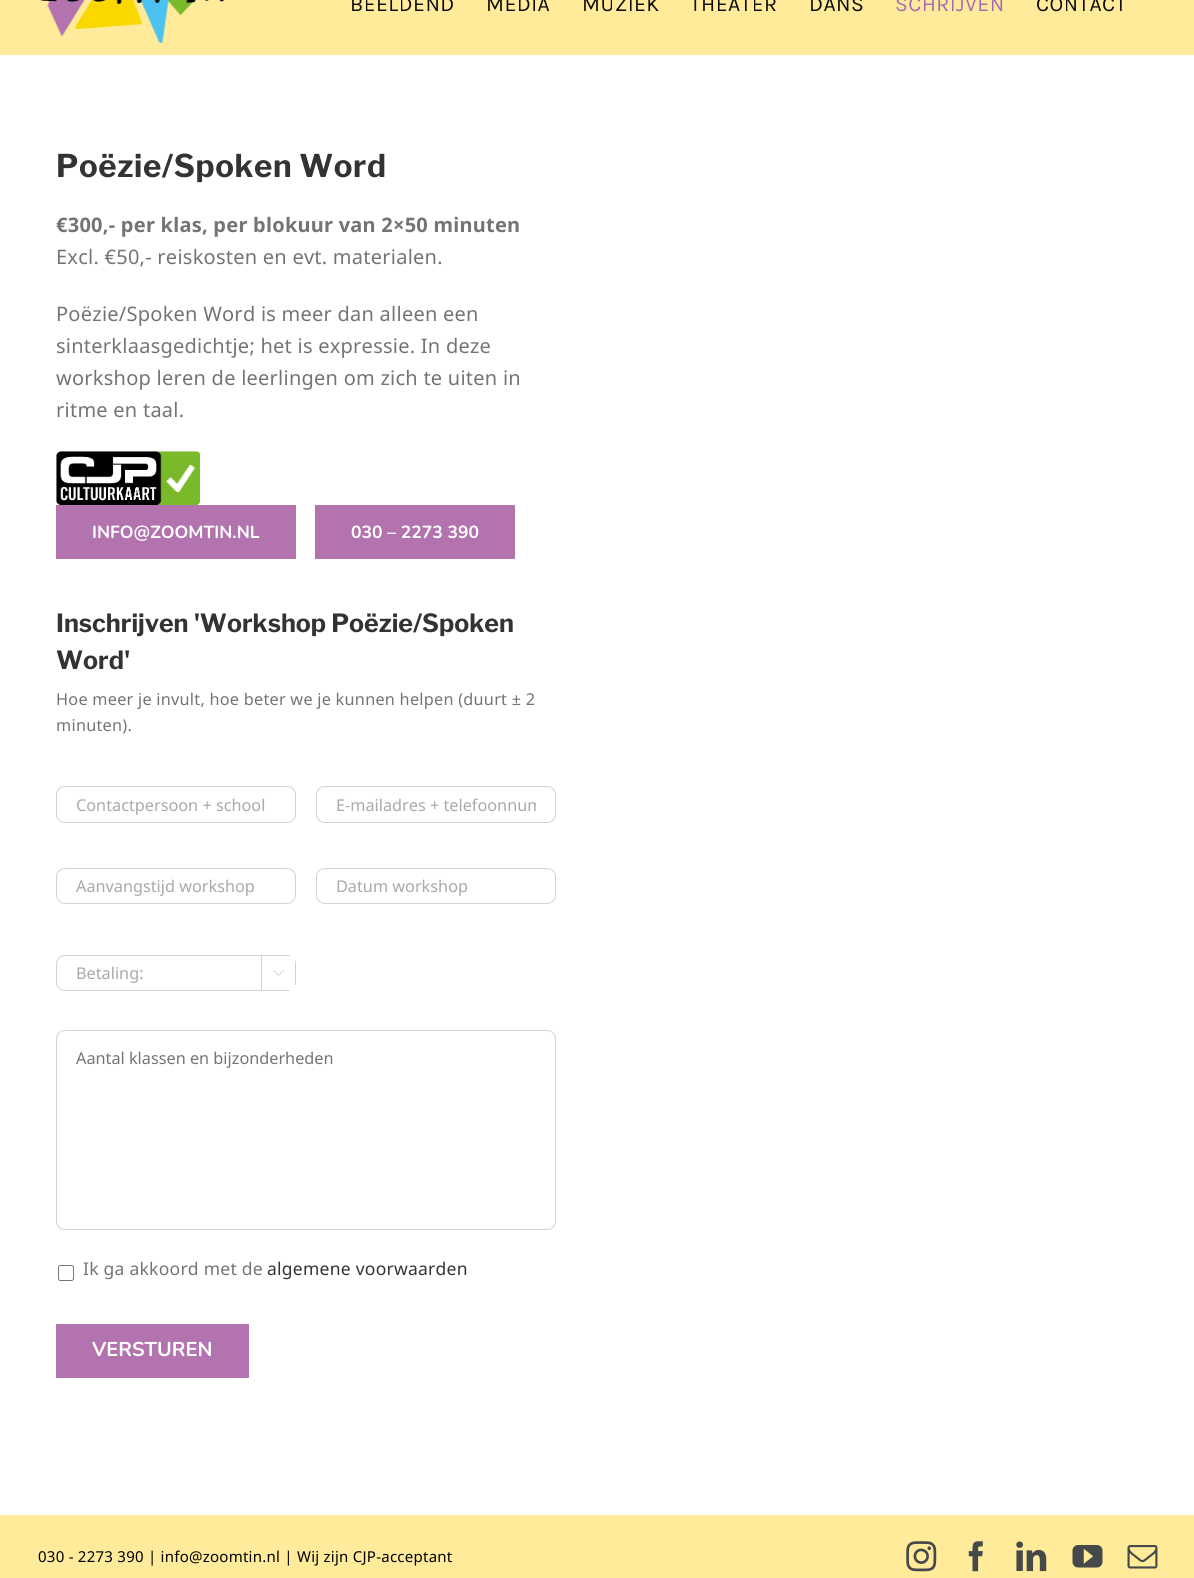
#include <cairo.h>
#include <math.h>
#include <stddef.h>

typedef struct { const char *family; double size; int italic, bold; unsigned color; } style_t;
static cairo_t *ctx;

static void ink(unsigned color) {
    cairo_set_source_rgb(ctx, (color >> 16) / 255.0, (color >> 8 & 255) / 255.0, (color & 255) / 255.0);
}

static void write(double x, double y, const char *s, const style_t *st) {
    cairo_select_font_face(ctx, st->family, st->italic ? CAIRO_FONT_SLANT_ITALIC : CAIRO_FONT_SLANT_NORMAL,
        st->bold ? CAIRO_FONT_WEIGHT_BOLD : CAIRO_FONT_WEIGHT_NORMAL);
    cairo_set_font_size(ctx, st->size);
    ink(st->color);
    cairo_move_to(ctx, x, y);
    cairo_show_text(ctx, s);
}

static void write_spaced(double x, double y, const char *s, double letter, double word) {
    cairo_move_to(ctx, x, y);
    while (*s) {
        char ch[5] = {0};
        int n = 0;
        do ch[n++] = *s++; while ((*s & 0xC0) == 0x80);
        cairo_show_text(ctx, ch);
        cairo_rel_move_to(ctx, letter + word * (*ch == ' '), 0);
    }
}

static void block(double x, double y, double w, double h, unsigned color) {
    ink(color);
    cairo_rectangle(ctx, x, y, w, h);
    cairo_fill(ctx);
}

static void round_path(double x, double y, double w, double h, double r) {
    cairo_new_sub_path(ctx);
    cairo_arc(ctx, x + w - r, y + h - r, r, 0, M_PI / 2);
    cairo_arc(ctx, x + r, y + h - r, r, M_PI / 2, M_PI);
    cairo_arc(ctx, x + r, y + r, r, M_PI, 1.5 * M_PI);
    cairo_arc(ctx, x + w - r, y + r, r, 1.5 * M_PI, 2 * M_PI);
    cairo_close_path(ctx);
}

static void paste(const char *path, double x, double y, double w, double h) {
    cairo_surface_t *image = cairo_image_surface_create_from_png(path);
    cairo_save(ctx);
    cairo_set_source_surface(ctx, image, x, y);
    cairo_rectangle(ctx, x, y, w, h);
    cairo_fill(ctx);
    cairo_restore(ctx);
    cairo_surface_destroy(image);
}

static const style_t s1 = {"Nunito", 17.5, 0, 1, 0xffffff};
static const style_t s2 = {"Libre Franklin", 25, 0, 1, 0x333333};
static const style_t s3 = {"Noto Sans", 16.25, 0, 0, 0xaaa9a9};
static const style_t s4 = {"Noto Sans", 16.25, 0, 0, 0x747474};
static const style_t s5 = {"Nunito", 20, 0, 1, 0xffffff};

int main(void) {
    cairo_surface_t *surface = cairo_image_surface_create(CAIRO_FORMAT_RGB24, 1194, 1578);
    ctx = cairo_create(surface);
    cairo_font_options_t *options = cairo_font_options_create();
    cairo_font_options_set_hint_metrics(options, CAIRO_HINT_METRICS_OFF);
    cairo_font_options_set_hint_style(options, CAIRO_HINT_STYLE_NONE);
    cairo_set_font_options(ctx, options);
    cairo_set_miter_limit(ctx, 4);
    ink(0xffffff);
    cairo_paint(ctx);
    block(0, 0, 1194, 55, 0xffeb99);
    paste("pic1.png", 40, 0, 184, 43);
    cairo_select_font_face(ctx, "Karla", CAIRO_FONT_SLANT_NORMAL, CAIRO_FONT_WEIGHT_NORMAL);
    cairo_set_font_size(ctx, 21.25);
    ink(0x0a0a0a);
    write_spaced(350, 11, "BEELDEND", 0.4, 0);
    write_spaced(486, 11, "MEDIA", 0.4, 0);
    write_spaced(582, 11, "MUZIEK", 0.4, 0);
    write_spaced(690, 11, "THEATER", 0.4, 0);
    write_spaced(809, 11, "DANS", 0.4, 0);
    ink(0xa66ab5);
    write_spaced(895, 11, "SCHRIJVEN", 0.4, 0);
    ink(0x0a0a0a);
    write_spaced(1036, 11, "CONTACT", 0.4, 0);
    cairo_select_font_face(ctx, "Libre Franklin", CAIRO_FONT_SLANT_NORMAL, CAIRO_FONT_WEIGHT_BOLD);
    cairo_set_font_size(ctx, 31.25);
    ink(0x333333);
    write_spaced(56, 177, "Poëzie/Spoken Word", 0.6, 0);
    cairo_select_font_face(ctx, "Noto Sans", CAIRO_FONT_SLANT_NORMAL, CAIRO_FONT_WEIGHT_BOLD);
    cairo_set_font_size(ctx, 20);
    ink(0x747474);
    write_spaced(56, 232, "€300,- per klas, per blokuur van 2×50 minuten", 0.25, 0);
    cairo_select_font_face(ctx, "Noto Sans", CAIRO_FONT_SLANT_NORMAL, CAIRO_FONT_WEIGHT_NORMAL);
    write_spaced(56, 264, "Excl. €50,- reiskosten en evt. materialen.", 0.25, 0);
    write_spaced(56, 321, "Poëzie/Spoken Word is meer dan alleen een", 0.25, 0);
    write_spaced(56, 353, "sinterklaasgedichtje; het is expressie. In deze", 0.25, 0);
    write_spaced(56, 385, "workshop leren de leerlingen om zich te uiten in", 0.25, 0);
    write_spaced(56, 417, "ritme en taal.", 0.25, 0);
    paste("pic2.png", 56, 451, 144, 54);
    block(56, 505, 240, 54, 0xb273af);
    write(92, 538, "INFO@ZOOMTIN.NL", &s1);
    block(315, 505, 200, 54, 0xb273af);
    write(351, 538, "030 – 2273 390", &s1);
    write(56, 632, "Inschrijven 'Workshop Poëzie/Spoken", &s2);
    write(56, 669, "Word'", &s2);
    cairo_select_font_face(ctx, "Noto Sans", CAIRO_FONT_SLANT_NORMAL, CAIRO_FONT_WEIGHT_NORMAL);
    cairo_set_font_size(ctx, 16.25);
    ink(0x747474);
    write_spaced(56, 705, "Hoe meer je invult, hoe beter we je kunnen helpen (duurt ± 2", 0.25, 0);
    write_spaced(56, 731, "minuten).", 0.25, 0);
    round_path(56.5, 786.5, 239, 36, 8.5);
    ink(0xd2d2d2);
    cairo_set_line_width(ctx, 1);
    cairo_stroke(ctx);
    write(76, 811, "Contactpersoon + school", &s3);
    round_path(316.5, 786.5, 239, 36, 8.5);
    ink(0xd2d2d2);
    cairo_stroke(ctx);
    cairo_save(ctx);
    cairo_rectangle(ctx, 336, 794, 200, 22);
    cairo_clip(ctx);
    write(336, 811, "E-mailadres + telefoonnum", &s3);
    cairo_restore(ctx);
    round_path(56.5, 868.5, 239, 35, 8.5);
    cairo_stroke(ctx);
    write(76, 892, "Aanvangstijd workshop", &s3);
    round_path(316.5, 868.5, 239, 35, 8.5);
    ink(0xd2d2d2);
    cairo_stroke(ctx);
    write(336, 892, "Datum workshop", &s3);
    round_path(56.5, 955.5, 239, 35, 8.5);
    ink(0xd2d2d2);
    cairo_stroke(ctx);
    write(76, 979, "Betaling:", &s3);
    block(288, 956, 7, 34, 0xffffff);
    block(261, 956, 1, 34, 0xd2d2d2);
    paste("pic3.png", 273, 970, 11, 6);
    round_path(56.5, 1030.5, 499, 199, 8.5);
    cairo_stroke(ctx);
    write(76, 1064, "Aantal klassen en bijzonderheden", &s4);
    round_path(58.5, 1265.5, 15, 15, 2);
    ink(0x767676);
    cairo_stroke(ctx);
    cairo_set_font_size(ctx, 17.5);
    ink(0x747474);
    write_spaced(83, 1275, "Ik ga akkoord met de", 0.25, 0);
    ink(0x333333);
    write_spaced(267, 1275, "algemene voorwaarden", 0.25, 0);
    block(56, 1324, 193, 54, 0xb273af);
    write(92, 1356, "VERSTUREN", &s5);
    block(0, 1515, 1194, 63, 0xffeb9a);
    cairo_select_font_face(ctx, "Noto Sans", CAIRO_FONT_SLANT_NORMAL, CAIRO_FONT_WEIGHT_NORMAL);
    cairo_set_font_size(ctx, 15);
    ink(0x000000);
    write_spaced(38, 1562, "030 - 2273 390 | info@zoomtin.nl | Wij zijn CJP-acceptant", 0.25, 0);
    paste("pic4.png", 906, 1541, 31, 31);
    paste("pic5.png", 968, 1541, 15, 31);
    paste("pic6.png", 1016, 1541, 31, 31);
    paste("pic7.png", 1072, 1545, 31, 23);
    paste("pic8.png", 1127, 1545, 31, 24);
    cairo_surface_write_to_png(surface, "screenshot.png");
    cairo_font_options_destroy(options);
    cairo_destroy(ctx);
    cairo_surface_destroy(surface);
    return 0;
}
